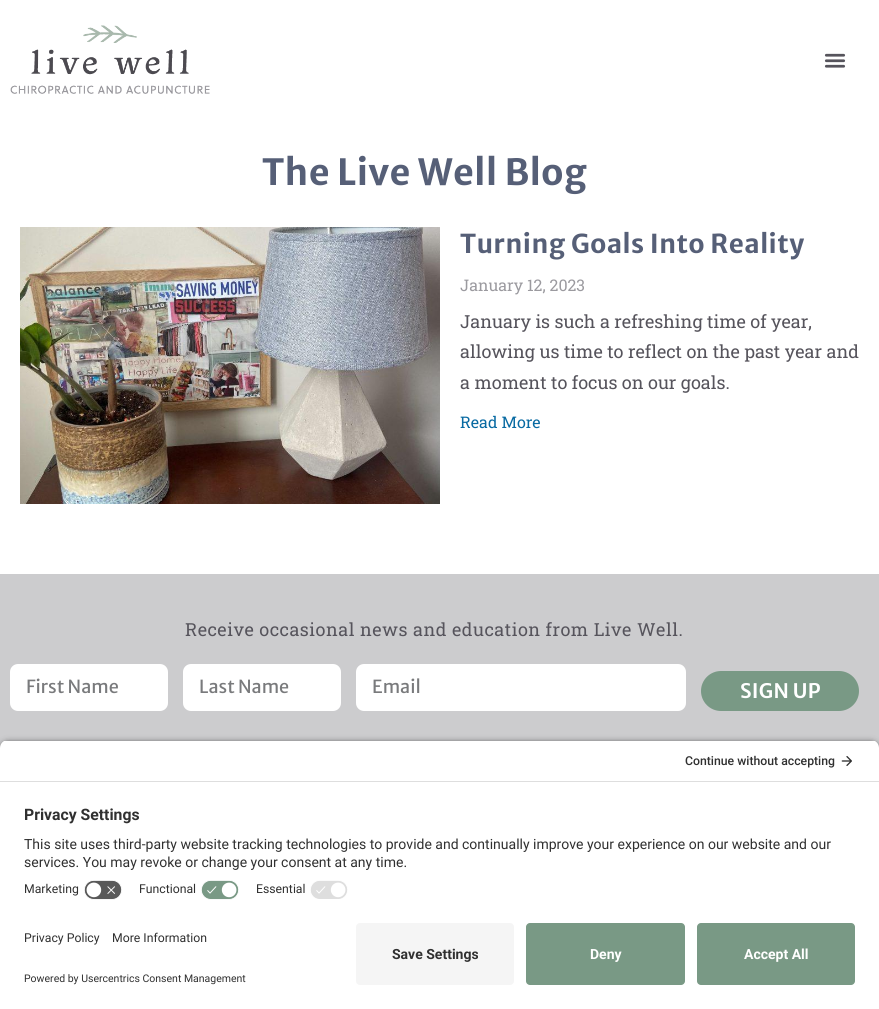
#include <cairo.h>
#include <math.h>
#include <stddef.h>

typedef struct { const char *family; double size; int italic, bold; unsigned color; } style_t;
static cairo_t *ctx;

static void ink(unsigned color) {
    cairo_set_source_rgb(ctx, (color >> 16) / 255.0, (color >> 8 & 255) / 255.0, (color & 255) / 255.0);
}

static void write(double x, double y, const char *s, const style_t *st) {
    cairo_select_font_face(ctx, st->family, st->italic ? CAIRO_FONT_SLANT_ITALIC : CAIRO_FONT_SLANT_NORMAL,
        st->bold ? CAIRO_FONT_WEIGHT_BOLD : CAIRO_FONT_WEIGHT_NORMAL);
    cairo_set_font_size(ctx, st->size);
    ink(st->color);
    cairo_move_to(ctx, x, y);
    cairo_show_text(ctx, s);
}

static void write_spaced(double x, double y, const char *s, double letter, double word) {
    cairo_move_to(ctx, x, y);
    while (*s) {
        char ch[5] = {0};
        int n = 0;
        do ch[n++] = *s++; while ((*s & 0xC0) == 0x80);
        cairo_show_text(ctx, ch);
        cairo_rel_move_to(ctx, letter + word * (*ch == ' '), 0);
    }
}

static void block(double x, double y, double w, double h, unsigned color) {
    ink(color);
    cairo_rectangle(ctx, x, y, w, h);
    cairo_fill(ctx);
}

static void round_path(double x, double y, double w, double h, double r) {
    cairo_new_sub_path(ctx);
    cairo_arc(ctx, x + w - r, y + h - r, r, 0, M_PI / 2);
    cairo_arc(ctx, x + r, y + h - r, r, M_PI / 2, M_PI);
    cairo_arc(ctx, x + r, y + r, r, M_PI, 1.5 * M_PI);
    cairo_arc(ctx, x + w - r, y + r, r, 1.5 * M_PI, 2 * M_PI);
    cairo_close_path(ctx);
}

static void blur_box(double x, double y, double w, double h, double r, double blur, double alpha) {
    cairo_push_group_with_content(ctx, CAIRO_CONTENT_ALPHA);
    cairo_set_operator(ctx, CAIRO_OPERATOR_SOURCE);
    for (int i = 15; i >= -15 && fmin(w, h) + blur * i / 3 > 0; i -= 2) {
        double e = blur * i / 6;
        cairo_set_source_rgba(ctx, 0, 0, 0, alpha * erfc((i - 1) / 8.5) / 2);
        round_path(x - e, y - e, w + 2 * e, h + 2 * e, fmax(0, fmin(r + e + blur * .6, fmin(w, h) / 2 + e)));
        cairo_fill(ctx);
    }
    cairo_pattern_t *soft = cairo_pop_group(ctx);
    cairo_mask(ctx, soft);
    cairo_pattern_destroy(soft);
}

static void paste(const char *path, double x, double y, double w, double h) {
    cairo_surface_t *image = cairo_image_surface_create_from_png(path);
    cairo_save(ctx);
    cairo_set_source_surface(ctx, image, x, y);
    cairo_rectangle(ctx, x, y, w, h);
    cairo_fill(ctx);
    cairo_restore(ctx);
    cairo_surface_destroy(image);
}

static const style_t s1 = {"Roboto Slab", 16, 0, 0, 0x9b9a9f};
static const style_t s2 = {"Roboto Slab", 18, 0, 0, 0x56545c};
static const style_t s3 = {"Roboto Slab", 16, 0, 0, 0x086aa2};
static const style_t s4 = {"Merriweather Sans", 18, 0, 0, 0x797a7c};
static const style_t s5 = {"Roboto Medium", 12.25, 0, 0, 0x303030};
static const style_t s6 = {"Roboto", 15.75, 0, 1, 0x303030};
static const style_t s7 = {"Roboto", 14, 0, 0, 0x303030};
static const style_t s8 = {"Roboto", 12.25, 0, 0, 0x303030};
static const style_t s9 = {"Roboto", 10.5, 0, 0, 0x303030};
static const style_t s10 = {"Roboto", 14, 0, 1, 0x303030};
static const style_t s11 = {"Roboto", 14, 0, 1, 0xffffff};

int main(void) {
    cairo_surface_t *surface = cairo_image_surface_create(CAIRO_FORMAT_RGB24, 879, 1009);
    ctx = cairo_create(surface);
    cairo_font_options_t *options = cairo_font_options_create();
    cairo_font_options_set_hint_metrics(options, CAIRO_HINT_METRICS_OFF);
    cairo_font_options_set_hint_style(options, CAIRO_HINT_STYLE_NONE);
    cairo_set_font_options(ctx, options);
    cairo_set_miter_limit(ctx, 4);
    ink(0xffffff);
    cairo_paint(ctx);
    paste("pic1.png", 10, 25, 200, 69);
    paste("pic2.png", 824, 53, 22, 15);
    cairo_select_font_face(ctx, "Merriweather Sans", CAIRO_FONT_SLANT_NORMAL, CAIRO_FONT_WEIGHT_BOLD);
    cairo_set_font_size(ctx, 36);
    ink(0x565f77);
    write_spaced(262, 185, "The Live Well Blog", 0.5, 0);
    paste("pic3.png", 20, 227, 420, 277);
    cairo_set_font_size(ctx, 26);
    write_spaced(460, 253, "Turning Goals Into Reality", 0.5, 0);
    write(460, 291, "January 12, 2023", &s1);
    write(460, 328, "January is such a refreshing time of year,", &s2);
    write(460, 358, "allowing us time to reflect on the past year and", &s2);
    write(460, 389, "a moment to focus on our goals.", &s2);
    write(460, 428, "Read More", &s3);
    block(0, 574, 879, 174, 0xccccce);
    cairo_set_font_size(ctx, 18);
    ink(0x56545c);
    write_spaced(185, 636, "Receive occasional news and education from Live Well.", 0.5, 0);
    ink(0xffffff);
    round_path(10, 664, 158, 47, 8);
    cairo_fill(ctx);
    write(26, 693, "First Name", &s4);
    ink(0xffffff);
    round_path(183, 664, 158, 47, 8);
    cairo_fill(ctx);
    write(199, 693, "Last Name", &s4);
    ink(0xffffff);
    round_path(356, 664, 330, 47, 8);
    cairo_fill(ctx);
    write(372, 693, "Email", &s4);
    ink(0x799985);
    round_path(701, 671, 158, 40, 20);
    cairo_fill(ctx);
    cairo_select_font_face(ctx, "Merriweather Sans SemiBold", CAIRO_FONT_SLANT_NORMAL, CAIRO_FONT_WEIGHT_NORMAL);
    cairo_set_font_size(ctx, 20);
    ink(0xffffff);
    write_spaced(740, 698, "SIGN UP", 0.25, 0);
    ink(0x000000);
    blur_box(0, 743, 879, 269, 8, 3.5, 0.8);
    cairo_save(ctx);
    cairo_new_path(ctx);
    cairo_move_to(ctx, 8, 740);
    cairo_line_to(ctx, 871, 740);
    cairo_curve_to(ctx, 875.5, 740, 879, 743.5, 879, 748);
    cairo_line_to(ctx, 879, 915);
    cairo_line_to(ctx, 0, 915);
    cairo_line_to(ctx, 0, 748);
    cairo_curve_to(ctx, 0, 743.5, 3.5, 740, 8, 740);
    cairo_close_path(ctx);
    cairo_clip(ctx);
    block(0, 741, 879, 40, 0xffffff);
    cairo_restore(ctx);
    block(0, 781, 879, 1, 0xdedede);
    write(685, 765, "Continue without accepting", &s5);
    paste("pic4.png", 841, 756, 11, 10);
    block(0, 782, 879, 227, 0xffffff);
    write(24, 820, "Privacy Settings", &s6);
    write(24, 849, "This site uses third-party website tracking technologies to provide and continually improve your experience on our website and our", &s7);
    write(24, 867, "services. You may revoke or change your consent at any time.", &s7);
    write(24, 893, "Marketing", &s8);
    paste("pic5.png", 84, 880, 38, 20);
    write(139, 893, "Functional", &s8);
    paste("pic6.png", 201, 880, 38, 20);
    write(256, 893, "Essential", &s8);
    paste("pic7.png", 310, 880, 38, 19);
    write(24, 942, "Privacy Policy", &s8);
    write(112, 942, "More Information", &s8);
    write(24, 982, "Powered by Usercentrics Consent Management", &s9);
    ink(0xf5f5f5);
    round_path(356, 923, 158, 62, 4);
    cairo_fill(ctx);
    write(392, 959, "Save Settings", &s10);
    ink(0x799985);
    round_path(526, 923, 159, 62, 4);
    cairo_fill(ctx);
    write(590, 959, "Deny", &s11);
    ink(0x799985);
    round_path(697, 923, 158, 62, 4);
    cairo_fill(ctx);
    write(744, 959, "Accept All", &s11);
    cairo_surface_write_to_png(surface, "screenshot.png");
    cairo_font_options_destroy(options);
    cairo_destroy(ctx);
    cairo_surface_destroy(surface);
    return 0;
}
